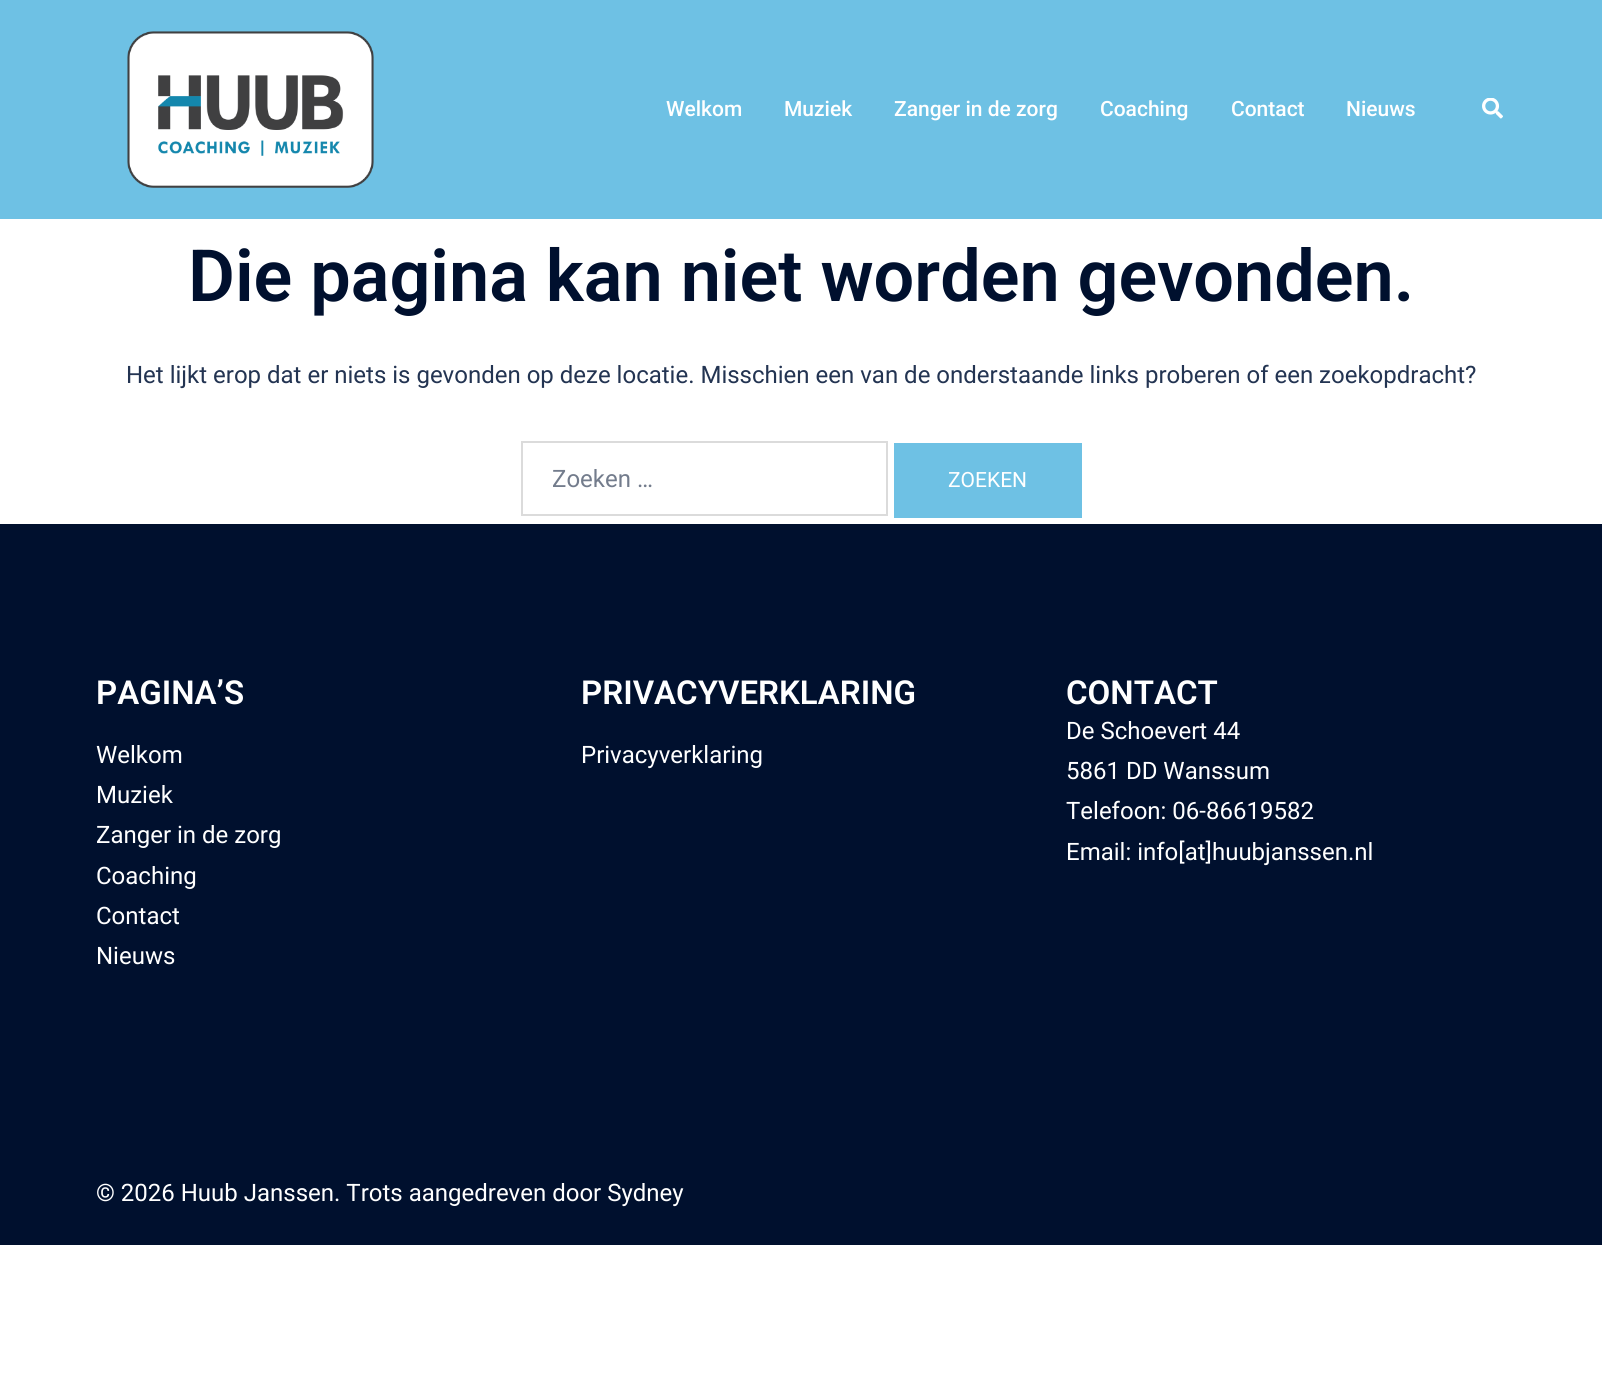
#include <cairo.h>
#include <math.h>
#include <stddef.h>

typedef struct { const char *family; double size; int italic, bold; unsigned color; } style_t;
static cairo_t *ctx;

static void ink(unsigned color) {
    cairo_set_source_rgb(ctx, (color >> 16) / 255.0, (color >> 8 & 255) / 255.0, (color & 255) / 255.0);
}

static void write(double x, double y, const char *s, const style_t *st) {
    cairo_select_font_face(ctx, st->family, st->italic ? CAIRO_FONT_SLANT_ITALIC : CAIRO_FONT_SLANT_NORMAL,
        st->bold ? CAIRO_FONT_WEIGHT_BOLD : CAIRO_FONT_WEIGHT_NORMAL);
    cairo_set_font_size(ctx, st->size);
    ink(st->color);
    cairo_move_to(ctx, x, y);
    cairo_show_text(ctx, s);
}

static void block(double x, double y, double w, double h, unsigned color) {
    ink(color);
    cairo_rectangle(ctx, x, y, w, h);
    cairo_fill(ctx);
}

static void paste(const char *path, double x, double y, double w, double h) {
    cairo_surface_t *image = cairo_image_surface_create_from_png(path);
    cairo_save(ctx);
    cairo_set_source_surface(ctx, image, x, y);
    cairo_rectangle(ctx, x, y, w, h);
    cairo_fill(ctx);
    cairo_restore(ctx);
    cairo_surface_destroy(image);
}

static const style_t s1 = {"Roboto Medium", 21, 0, 0, 0xffffff};
static const style_t s2 = {"Roboto SemiBold", 72, 0, 0, 0x00102e};
static const style_t s3 = {"Roboto", 24, 0, 0, 0x233452};
static const style_t s4 = {"Roboto", 24, 0, 0, 0x737c8c};
static const style_t s5 = {"Roboto", 21, 0, 0, 0xffffff};
static const style_t s6 = {"Roboto SemiBold", 33, 0, 0, 0xffffff};
static const style_t s7 = {"Roboto", 24, 0, 0, 0xffffff};

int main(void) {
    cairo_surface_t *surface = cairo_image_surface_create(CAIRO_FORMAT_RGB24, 1602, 1380);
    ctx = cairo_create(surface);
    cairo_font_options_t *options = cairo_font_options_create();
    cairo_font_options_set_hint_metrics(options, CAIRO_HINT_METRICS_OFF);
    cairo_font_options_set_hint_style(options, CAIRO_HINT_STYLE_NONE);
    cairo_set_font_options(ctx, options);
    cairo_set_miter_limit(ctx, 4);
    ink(0xffffff);
    cairo_paint(ctx);
    block(0, 0, 1602, 219, 0x6ec1e4);
    paste("pic1.png", 127, 31, 247, 157);
    write(666, 116, "Welkom", &s1);
    write(784, 116, "Muziek", &s1);
    write(894, 116, "Zanger in de zorg", &s1);
    write(1100, 116, "Coaching", &s1);
    write(1231, 116, "Contact", &s1);
    write(1346, 116, "Nieuws", &s1);
    paste("pic2.png", 1482, 98, 21, 21);
    write(188, 301, "Die pagina kan niet worden gevonden.", &s2);
    write(126, 383, "Het lijkt erop dat er niets is gevonden op deze locatie. Misschien een van de onderstaande links proberen of een zoekopdracht?", &s3);
    cairo_rectangle(ctx, 522, 442, 365, 73);
    ink(0xdbdbdb);
    cairo_stroke(ctx);
    write(552, 487, "Zoeken …", &s4);
    block(894, 443, 188, 75, 0x6ec1e4);
    write(948, 487, "ZOEKEN", &s5);
    block(0, 524, 1602, 721, 0x00102e);
    write(96, 704, "PAGINA’S", &s6);
    write(96, 763, "Welkom", &s7);
    write(96, 803, "Muziek", &s7);
    write(96, 843, "Zanger in de zorg", &s7);
    write(96, 884, "Coaching", &s7);
    write(96, 924, "Contact", &s7);
    write(96, 964, "Nieuws", &s7);
    write(581, 704, "PRIVACYVERKLARING", &s6);
    write(581, 763, "Privacyverklaring", &s7);
    write(1066, 704, "CONTACT", &s6);
    write(1066, 739, "De Schoevert 44", &s7);
    write(1066, 779, "5861 DD Wanssum", &s7);
    write(1066, 819, "Telefoon: 06-86619582", &s7);
    write(1066, 860, "Email: info[at]huubjanssen.nl", &s7);
    write(96, 1201, "© 2026 Huub Janssen. Trots aangedreven door Sydney", &s7);
    cairo_surface_write_to_png(surface, "screenshot.png");
    cairo_font_options_destroy(options);
    cairo_destroy(ctx);
    cairo_surface_destroy(surface);
    return 0;
}
